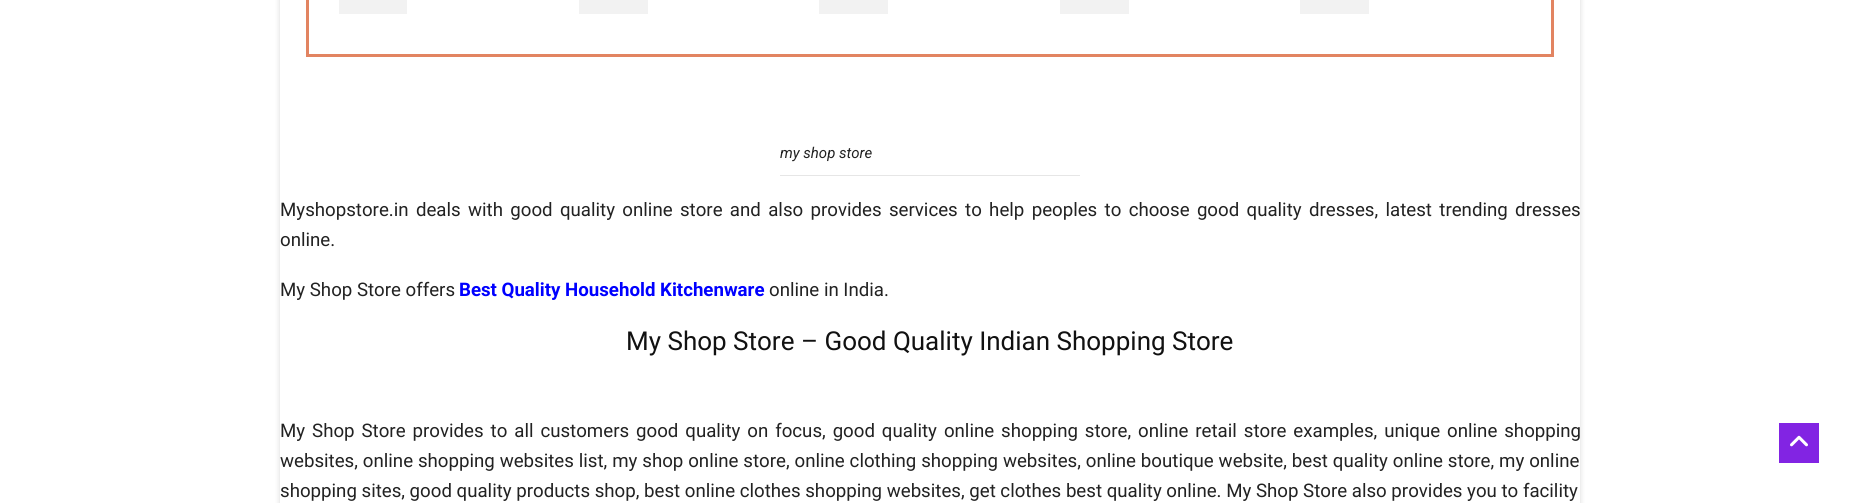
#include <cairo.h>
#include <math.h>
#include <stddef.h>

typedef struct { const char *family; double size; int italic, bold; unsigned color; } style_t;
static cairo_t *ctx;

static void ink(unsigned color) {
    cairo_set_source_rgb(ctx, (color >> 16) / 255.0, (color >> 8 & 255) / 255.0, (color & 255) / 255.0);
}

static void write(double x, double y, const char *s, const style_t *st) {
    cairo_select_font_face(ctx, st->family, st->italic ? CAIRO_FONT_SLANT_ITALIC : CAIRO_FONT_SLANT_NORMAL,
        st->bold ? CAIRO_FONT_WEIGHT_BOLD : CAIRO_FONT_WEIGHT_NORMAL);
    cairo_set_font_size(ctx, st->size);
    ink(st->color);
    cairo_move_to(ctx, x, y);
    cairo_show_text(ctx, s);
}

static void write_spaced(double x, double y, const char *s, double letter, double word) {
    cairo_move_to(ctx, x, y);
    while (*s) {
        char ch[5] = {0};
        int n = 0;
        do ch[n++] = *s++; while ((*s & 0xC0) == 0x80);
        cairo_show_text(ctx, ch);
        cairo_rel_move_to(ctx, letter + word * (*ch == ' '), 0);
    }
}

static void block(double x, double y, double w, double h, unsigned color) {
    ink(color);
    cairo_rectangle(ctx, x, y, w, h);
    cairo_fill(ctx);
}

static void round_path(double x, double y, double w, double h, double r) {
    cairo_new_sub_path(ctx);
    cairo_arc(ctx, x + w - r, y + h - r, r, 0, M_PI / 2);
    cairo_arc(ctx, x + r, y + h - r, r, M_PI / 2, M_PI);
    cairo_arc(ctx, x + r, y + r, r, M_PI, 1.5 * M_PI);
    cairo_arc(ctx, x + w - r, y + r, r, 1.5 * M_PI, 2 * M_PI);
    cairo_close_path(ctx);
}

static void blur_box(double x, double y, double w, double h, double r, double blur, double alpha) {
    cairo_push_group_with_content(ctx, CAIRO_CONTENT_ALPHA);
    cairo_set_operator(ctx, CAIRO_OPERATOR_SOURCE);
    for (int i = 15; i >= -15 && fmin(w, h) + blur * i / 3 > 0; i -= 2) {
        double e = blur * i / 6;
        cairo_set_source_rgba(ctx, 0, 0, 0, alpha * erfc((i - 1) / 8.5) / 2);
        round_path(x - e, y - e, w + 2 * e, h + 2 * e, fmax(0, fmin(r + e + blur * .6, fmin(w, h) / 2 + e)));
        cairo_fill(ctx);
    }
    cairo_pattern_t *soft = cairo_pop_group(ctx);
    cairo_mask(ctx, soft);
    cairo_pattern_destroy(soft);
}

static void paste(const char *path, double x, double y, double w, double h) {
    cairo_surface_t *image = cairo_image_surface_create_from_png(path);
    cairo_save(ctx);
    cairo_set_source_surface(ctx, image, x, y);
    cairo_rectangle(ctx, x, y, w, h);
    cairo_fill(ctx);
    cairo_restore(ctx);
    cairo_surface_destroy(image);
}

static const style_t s1 = {"Roboto", 15, 1, 0, 0x222222};
static const style_t s2 = {"Roboto", 18.67, 0, 0, 0x222222};
static const style_t s3 = {"Roboto", 18.67, 0, 1, 0x0000ff};
static const style_t s4 = {"Roboto", 26, 0, 0, 0x111111};

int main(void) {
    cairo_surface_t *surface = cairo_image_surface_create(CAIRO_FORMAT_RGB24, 1859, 503);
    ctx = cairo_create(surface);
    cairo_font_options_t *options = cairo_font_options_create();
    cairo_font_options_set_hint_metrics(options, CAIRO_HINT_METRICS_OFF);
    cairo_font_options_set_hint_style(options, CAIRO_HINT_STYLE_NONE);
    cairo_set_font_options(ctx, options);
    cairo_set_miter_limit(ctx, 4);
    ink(0xffffff);
    cairo_paint(ctx);
    cairo_save(ctx);
    cairo_set_fill_rule(ctx, CAIRO_FILL_RULE_EVEN_ODD);
    cairo_new_path(ctx);
    cairo_move_to(ctx, 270, 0);
    cairo_line_to(ctx, 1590, 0);
    cairo_line_to(ctx, 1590, 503);
    cairo_line_to(ctx, 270, 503);
    cairo_close_path(ctx);
    cairo_move_to(ctx, 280, -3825);
    cairo_line_to(ctx, 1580, -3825);
    cairo_line_to(ctx, 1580, 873);
    cairo_line_to(ctx, 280, 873);
    cairo_close_path(ctx);
    cairo_clip(ctx);
    ink(0x000000);
    blur_box(280, -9, 1300, 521, 0, 3, 0.15);
    cairo_restore(ctx);
    block(1551, 0, 3, 57, 0xe28461);
    block(306, 54, 1248, 3, 0xe28461);
    block(306, 0, 3, 57, 0xe28461);
    block(339, 0, 68, 14, 0xf2f2f2);
    block(579, 0, 69, 14, 0xf2f2f2);
    block(819, 0, 69, 14, 0xf2f2f2);
    block(1060, 0, 69, 14, 0xf2f2f2);
    block(1300, 0, 69, 14, 0xf2f2f2);
    block(780, 175, 300, 1, 0xe6e6e6);
    write(780, 158, "my shop store", &s1);
    cairo_select_font_face(ctx, "Roboto", CAIRO_FONT_SLANT_NORMAL, CAIRO_FONT_WEIGHT_NORMAL);
    cairo_set_font_size(ctx, 18.67);
    write_spaced(280, 216, "Myshopstore.in deals with good quality online store and also provides services to help peoples to choose good quality dresses, latest trending dresses", 0, 2.7);
    write(280, 246, "online.", &s2);
    write(280, 296, "My Shop Store offers", &s2);
    write(459, 296, "Best Quality Household Kitchenware", &s3);
    write(769, 296, "online in India.", &s2);
    write(626, 350, "My Shop Store – Good Quality Indian Shopping Store", &s4);
    cairo_set_font_size(ctx, 18.67);
    ink(0x222222);
    write_spaced(280, 437, "My Shop Store provides to all customers good quality on focus, good quality online shopping store, online retail store examples, unique online shopping", 0, 2.3);
    write_spaced(280, 467, "websites, online shopping websites list, my shop online store, online clothing shopping websites, online boutique website, best quality online store, my online", 0, 0.25);
    write(280, 497, "shopping sites, good quality products shop, best online clothes shopping websites, get clothes best quality online. My Shop Store also provides you to facility", &s2);
    block(1779, 423, 40, 40, 0x8224e3);
    paste("pic1.png", 1790, 435, 18, 12);
    cairo_surface_write_to_png(surface, "screenshot.png");
    cairo_font_options_destroy(options);
    cairo_destroy(ctx);
    cairo_surface_destroy(surface);
    return 0;
}
